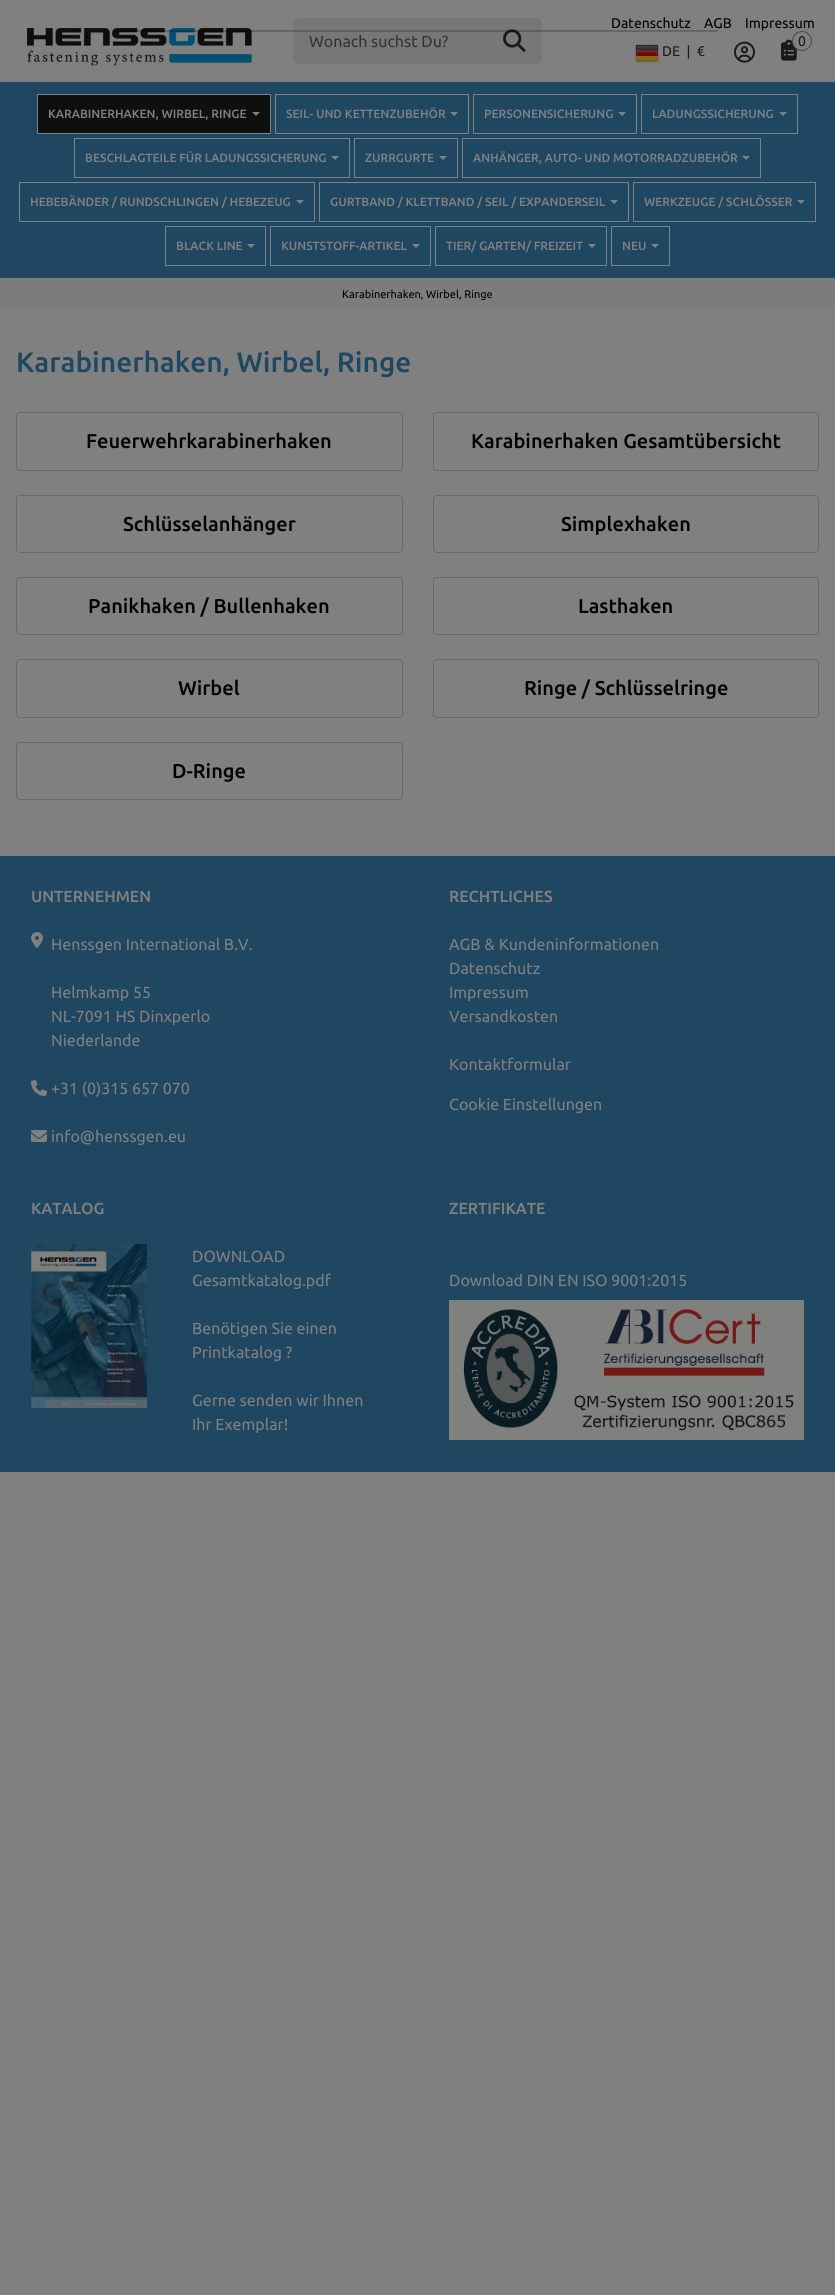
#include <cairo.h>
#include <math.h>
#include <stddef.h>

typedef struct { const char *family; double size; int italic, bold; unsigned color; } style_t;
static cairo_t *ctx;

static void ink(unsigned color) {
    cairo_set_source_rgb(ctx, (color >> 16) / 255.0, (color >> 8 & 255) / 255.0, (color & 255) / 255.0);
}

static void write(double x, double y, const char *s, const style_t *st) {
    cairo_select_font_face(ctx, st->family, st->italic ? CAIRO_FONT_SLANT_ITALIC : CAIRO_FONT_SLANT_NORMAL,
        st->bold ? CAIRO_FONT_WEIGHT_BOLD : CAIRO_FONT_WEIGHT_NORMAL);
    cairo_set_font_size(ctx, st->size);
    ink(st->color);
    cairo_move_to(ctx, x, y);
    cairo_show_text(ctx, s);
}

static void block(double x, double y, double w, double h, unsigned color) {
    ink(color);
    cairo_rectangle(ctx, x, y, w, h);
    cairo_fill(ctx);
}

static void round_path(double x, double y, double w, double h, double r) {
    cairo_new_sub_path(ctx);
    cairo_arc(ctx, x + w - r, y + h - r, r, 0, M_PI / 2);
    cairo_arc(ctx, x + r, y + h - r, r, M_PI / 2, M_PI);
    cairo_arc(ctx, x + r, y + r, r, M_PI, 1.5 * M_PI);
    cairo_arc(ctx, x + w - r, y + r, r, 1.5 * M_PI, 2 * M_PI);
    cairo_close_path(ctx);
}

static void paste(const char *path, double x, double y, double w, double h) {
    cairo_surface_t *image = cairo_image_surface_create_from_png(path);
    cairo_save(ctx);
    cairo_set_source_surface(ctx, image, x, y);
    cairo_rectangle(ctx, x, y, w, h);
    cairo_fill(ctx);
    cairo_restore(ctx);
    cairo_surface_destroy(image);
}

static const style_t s1 = {"Ubuntu", 16, 0, 0, 0x333333};
static const style_t s2 = {"Ubuntu", 14, 0, 0, 0x000000};
static const style_t s3 = {"Ubuntu", 14, 0, 0, 0x1a1a1a};
static const style_t s4 = {"Ubuntu Medium", 12, 0, 0, 0x808080};
static const style_t s5 = {"Ubuntu", 11, 0, 0, 0x000000};
static const style_t s6 = {"Ubuntu Medium", 28, 0, 0, 0x1f4761};
static const style_t s7 = {"Ubuntu Medium", 20, 0, 0, 0x000000};
static const style_t s8 = {"Ubuntu Medium", 16, 0, 0, 0x808080};
static const style_t s9 = {"Ubuntu", 16, 0, 0, 0x808080};

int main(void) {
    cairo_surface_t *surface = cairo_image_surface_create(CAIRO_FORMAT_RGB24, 835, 2295);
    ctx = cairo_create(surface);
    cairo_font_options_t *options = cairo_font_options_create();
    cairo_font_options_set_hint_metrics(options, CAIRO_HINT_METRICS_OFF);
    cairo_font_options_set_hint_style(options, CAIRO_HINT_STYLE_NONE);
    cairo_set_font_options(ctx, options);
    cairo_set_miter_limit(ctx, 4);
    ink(0x808080);
    cairo_paint(ctx);
    paste("pic1.png", 27, 26, 227, 41);
    ink(0x777777);
    cairo_new_path(ctx);
    cairo_move_to(ctx, 299, 18);
    cairo_line_to(ctx, 488, 18);
    cairo_line_to(ctx, 488, 64);
    cairo_line_to(ctx, 299, 64);
    cairo_curve_to(ctx, 295.5, 64, 293, 61.5, 293, 58);
    cairo_line_to(ctx, 293, 24);
    cairo_curve_to(ctx, 293, 20.5, 295.5, 18, 299, 18);
    cairo_close_path(ctx);
    cairo_fill(ctx);
    write(309, 47, "Wonach suchst Du?", &s1);
    ink(0x777777);
    cairo_new_path(ctx);
    cairo_move_to(ctx, 487, 18);
    cairo_line_to(ctx, 536, 18);
    cairo_curve_to(ctx, 539.5, 18, 542, 20.5, 542, 24);
    cairo_line_to(ctx, 542, 58);
    cairo_curve_to(ctx, 542, 61.5, 539.5, 64, 536, 64);
    cairo_line_to(ctx, 487, 64);
    cairo_close_path(ctx);
    cairo_fill(ctx);
    paste("pic2.png", 503, 29, 23, 23);
    write(611, 28, "Datenschutz", &s2);
    write(704, 28, "AGB", &s2);
    write(745, 28, "Impressum", &s2);
    paste("pic3.png", 635, 44, 24, 19);
    write(662, 56, "DE  |  €", &s3);
    paste("pic4.png", 734, 41, 21, 22);
    paste("pic5.png", 781, 39, 16, 22);
    ink(0x808080);
    cairo_arc(ctx, 802, 41, 9.5, 0, 2 * M_PI);
    cairo_fill_preserve(ctx);
    ink(0x4d4d4d);
    cairo_set_line_width(ctx, 1);
    cairo_stroke(ctx);
    write(798, 46, "0", &s3);
    block(0, 82, 835, 196, 0x1f4761);
    cairo_rectangle(ctx, 37.5, 94.5, 233, 39);
    ink(0x808080);
    cairo_stroke(ctx);
    block(38, 95, 232, 38, 0x0f0f0e);
    write(48, 118, "KARABINERHAKEN, WIRBEL, RINGE", &s4);
    cairo_new_path(ctx);
    cairo_move_to(ctx, 252, 112);
    cairo_line_to(ctx, 260, 112);
    cairo_line_to(ctx, 256, 116);
    cairo_close_path(ctx);
    cairo_fill(ctx);
    cairo_rectangle(ctx, 275.5, 94.5, 193, 39);
    cairo_stroke(ctx);
    write(286, 118, "SEIL- UND KETTENZUBEHÖR", &s4);
    cairo_new_path(ctx);
    cairo_move_to(ctx, 450, 112);
    cairo_line_to(ctx, 458, 112);
    cairo_line_to(ctx, 454, 116);
    cairo_close_path(ctx);
    cairo_fill(ctx);
    cairo_rectangle(ctx, 473.5, 94.5, 163, 39);
    cairo_stroke(ctx);
    write(484, 118, "PERSONENSICHERUNG", &s4);
    cairo_new_path(ctx);
    cairo_move_to(ctx, 618, 112);
    cairo_line_to(ctx, 626, 112);
    cairo_line_to(ctx, 622, 116);
    cairo_close_path(ctx);
    cairo_fill(ctx);
    cairo_rectangle(ctx, 641.5, 94.5, 156, 39);
    cairo_stroke(ctx);
    write(652, 118, "LADUNGSSICHERUNG", &s4);
    cairo_new_path(ctx);
    cairo_move_to(ctx, 779, 112);
    cairo_line_to(ctx, 787, 112);
    cairo_line_to(ctx, 783, 116);
    cairo_close_path(ctx);
    cairo_fill(ctx);
    cairo_rectangle(ctx, 74.5, 138.5, 275, 39);
    cairo_stroke(ctx);
    write(85, 162, "BESCHLAGTEILE FÜR LADUNGSSICHERUNG", &s4);
    cairo_new_path(ctx);
    cairo_move_to(ctx, 331, 156);
    cairo_line_to(ctx, 339, 156);
    cairo_line_to(ctx, 335, 160);
    cairo_close_path(ctx);
    cairo_fill(ctx);
    cairo_rectangle(ctx, 354.5, 138.5, 103, 39);
    cairo_stroke(ctx);
    write(365, 162, "ZURRGURTE", &s4);
    cairo_new_path(ctx);
    cairo_move_to(ctx, 439, 156);
    cairo_line_to(ctx, 447, 156);
    cairo_line_to(ctx, 443, 160);
    cairo_close_path(ctx);
    cairo_fill(ctx);
    cairo_rectangle(ctx, 462.5, 138.5, 298, 39);
    cairo_stroke(ctx);
    write(473, 162, "ANHÄNGER, AUTO- UND MOTORRADZUBEHÖR", &s4);
    cairo_new_path(ctx);
    cairo_move_to(ctx, 742, 156);
    cairo_line_to(ctx, 750, 156);
    cairo_line_to(ctx, 746, 160);
    cairo_close_path(ctx);
    cairo_fill(ctx);
    cairo_rectangle(ctx, 19.5, 182.5, 295, 39);
    cairo_stroke(ctx);
    write(30, 206, "HEBEBÄNDER / RUNDSCHLINGEN / HEBEZEUG", &s4);
    cairo_new_path(ctx);
    cairo_move_to(ctx, 296, 200);
    cairo_line_to(ctx, 304, 200);
    cairo_line_to(ctx, 300, 204);
    cairo_close_path(ctx);
    cairo_fill(ctx);
    cairo_rectangle(ctx, 319.5, 182.5, 309, 39);
    cairo_stroke(ctx);
    write(330, 206, "GURTBAND / KLETTBAND / SEIL / EXPANDERSEIL", &s4);
    cairo_new_path(ctx);
    cairo_move_to(ctx, 610, 200);
    cairo_line_to(ctx, 618, 200);
    cairo_line_to(ctx, 614, 204);
    cairo_close_path(ctx);
    cairo_fill(ctx);
    cairo_rectangle(ctx, 633.5, 182.5, 182, 39);
    cairo_stroke(ctx);
    write(644, 206, "WERKZEUGE / SCHLÖSSER", &s4);
    cairo_new_path(ctx);
    cairo_move_to(ctx, 797, 200);
    cairo_line_to(ctx, 805, 200);
    cairo_line_to(ctx, 801, 204);
    cairo_close_path(ctx);
    cairo_fill(ctx);
    cairo_rectangle(ctx, 165.5, 226.5, 100, 39);
    cairo_stroke(ctx);
    write(176, 250, "BLACK LINE", &s4);
    cairo_new_path(ctx);
    cairo_move_to(ctx, 247, 244);
    cairo_line_to(ctx, 255, 244);
    cairo_line_to(ctx, 251, 248);
    cairo_close_path(ctx);
    cairo_fill(ctx);
    cairo_rectangle(ctx, 270.5, 226.5, 160, 39);
    cairo_stroke(ctx);
    write(281, 250, "KUNSTSTOFF-ARTIKEL", &s4);
    cairo_new_path(ctx);
    cairo_move_to(ctx, 412, 244);
    cairo_line_to(ctx, 420, 244);
    cairo_line_to(ctx, 416, 248);
    cairo_close_path(ctx);
    cairo_fill(ctx);
    cairo_rectangle(ctx, 435.5, 226.5, 171, 39);
    cairo_stroke(ctx);
    write(446, 250, "TIER/ GARTEN/ FREIZEIT", &s4);
    cairo_new_path(ctx);
    cairo_move_to(ctx, 588, 244);
    cairo_line_to(ctx, 596, 244);
    cairo_line_to(ctx, 592, 248);
    cairo_close_path(ctx);
    cairo_fill(ctx);
    cairo_rectangle(ctx, 611.5, 226.5, 58, 39);
    cairo_stroke(ctx);
    write(622, 250, "NEU", &s4);
    cairo_new_path(ctx);
    cairo_move_to(ctx, 651, 244);
    cairo_line_to(ctx, 659, 244);
    cairo_line_to(ctx, 655, 248);
    cairo_close_path(ctx);
    cairo_fill(ctx);
    block(0, 278, 835, 32, 0x7c7c7c);
    write(342, 298, "Karabinerhaken, Wirbel, Ringe", &s5);
    cairo_set_source_rgba(ctx, 0, 0, 0, 0.2);
    cairo_rectangle(ctx, 118, 30, 600, 2);
    cairo_fill(ctx);
    write(16, 372, "Karabinerhaken, Wirbel, Ringe", &s6);
    round_path(16.5, 412.5, 386, 58, 3.5);
    ink(0x676a6d);
    cairo_stroke(ctx);
    write(86, 448, "Feuerwehrkarabinerhaken", &s7);
    round_path(433.5, 412.5, 385, 58, 3.5);
    ink(0x676a6d);
    cairo_stroke(ctx);
    write(471, 448, "Karabinerhaken Gesamtübersicht", &s7);
    round_path(16.5, 495.5, 386, 57, 3.5);
    ink(0x676a6d);
    cairo_stroke(ctx);
    write(123, 531, "Schlüsselanhänger", &s7);
    round_path(433.5, 495.5, 385, 57, 3.5);
    ink(0x676a6d);
    cairo_stroke(ctx);
    write(561, 531, "Simplexhaken", &s7);
    round_path(16.5, 577.5, 386, 57, 3.5);
    ink(0x676a6d);
    cairo_stroke(ctx);
    write(88, 613, "Panikhaken / Bullenhaken", &s7);
    round_path(433.5, 577.5, 385, 57, 3.5);
    ink(0x676a6d);
    cairo_stroke(ctx);
    write(578, 613, "Lasthaken", &s7);
    round_path(16.5, 659.5, 386, 58, 3.5);
    ink(0x676a6d);
    cairo_stroke(ctx);
    write(178, 695, "Wirbel", &s7);
    round_path(433.5, 659.5, 385, 58, 3.5);
    ink(0x676a6d);
    cairo_stroke(ctx);
    write(524, 695, "Ringe / Schlüsselringe", &s7);
    round_path(16.5, 742.5, 386, 57, 3.5);
    ink(0x676a6d);
    cairo_stroke(ctx);
    write(172, 778, "D-Ringe", &s7);
    block(0, 856, 835, 616, 0x1f4761);
    write(31, 902, "UNTERNEHMEN", &s8);
    paste("pic6.png", 31, 932, 12, 16);
    write(51, 950, "Henssgen International B.V.", &s9);
    write(51, 998, "Helmkamp 55", &s9);
    write(51, 1022, "NL-7091 HS Dinxperlo", &s9);
    write(51, 1046, "Niederlande", &s9);
    paste("pic7.png", 31, 1080, 16, 16);
    write(51, 1094, "+31 (0)315 657 070", &s9);
    paste("pic8.png", 31, 1130, 16, 12);
    write(51, 1142, "info@henssgen.eu", &s9);
    write(449, 902, "RECHTLICHES", &s8);
    write(449, 950, "AGB & Kundeninformationen", &s9);
    write(449, 974, "Datenschutz", &s9);
    write(449, 998, "Impressum", &s9);
    write(449, 1022, "Versandkosten", &s9);
    write(449, 1070, "Kontaktformular", &s9);
    write(449, 1110, "Cookie Einstellungen", &s9);
    write(31, 1214, "KATALOG", &s8);
    paste("pic9.png", 31, 1244, 116, 164);
    write(192, 1262, "DOWNLOAD", &s9);
    write(192, 1286, "Gesamtkatalog.pdf", &s9);
    write(192, 1334, "Benötigen Sie einen", &s9);
    write(192, 1358, "Printkatalog ?", &s9);
    write(192, 1406, "Gerne senden wir Ihnen", &s9);
    write(192, 1430, "Ihr Exemplar!", &s9);
    write(449, 1214, "ZERTIFIKATE", &s8);
    write(449, 1286, "Download DIN EN ISO 9001:2015", &s9);
    paste("pic10.png", 449, 1300, 355, 140);
    cairo_surface_write_to_png(surface, "screenshot.png");
    cairo_font_options_destroy(options);
    cairo_destroy(ctx);
    cairo_surface_destroy(surface);
    return 0;
}
